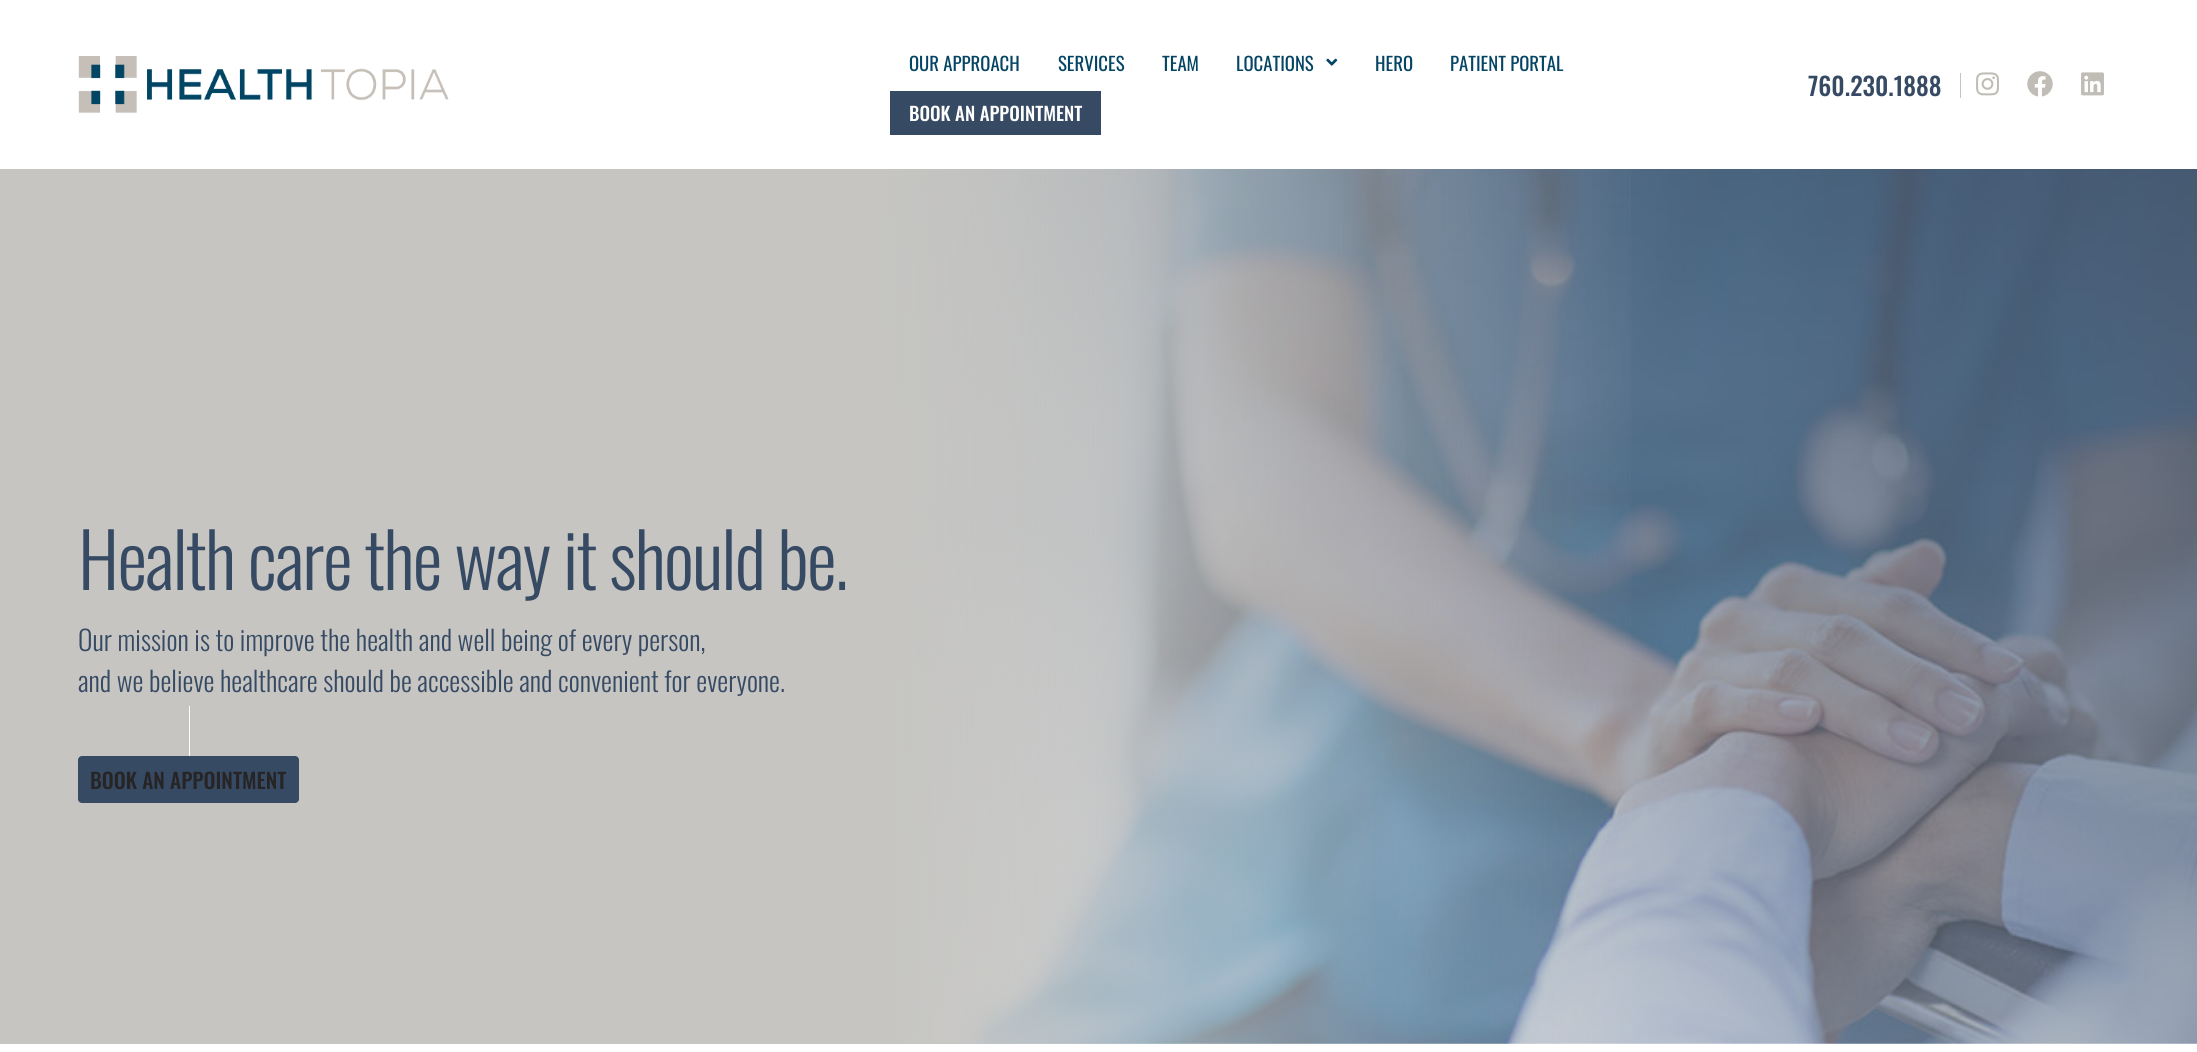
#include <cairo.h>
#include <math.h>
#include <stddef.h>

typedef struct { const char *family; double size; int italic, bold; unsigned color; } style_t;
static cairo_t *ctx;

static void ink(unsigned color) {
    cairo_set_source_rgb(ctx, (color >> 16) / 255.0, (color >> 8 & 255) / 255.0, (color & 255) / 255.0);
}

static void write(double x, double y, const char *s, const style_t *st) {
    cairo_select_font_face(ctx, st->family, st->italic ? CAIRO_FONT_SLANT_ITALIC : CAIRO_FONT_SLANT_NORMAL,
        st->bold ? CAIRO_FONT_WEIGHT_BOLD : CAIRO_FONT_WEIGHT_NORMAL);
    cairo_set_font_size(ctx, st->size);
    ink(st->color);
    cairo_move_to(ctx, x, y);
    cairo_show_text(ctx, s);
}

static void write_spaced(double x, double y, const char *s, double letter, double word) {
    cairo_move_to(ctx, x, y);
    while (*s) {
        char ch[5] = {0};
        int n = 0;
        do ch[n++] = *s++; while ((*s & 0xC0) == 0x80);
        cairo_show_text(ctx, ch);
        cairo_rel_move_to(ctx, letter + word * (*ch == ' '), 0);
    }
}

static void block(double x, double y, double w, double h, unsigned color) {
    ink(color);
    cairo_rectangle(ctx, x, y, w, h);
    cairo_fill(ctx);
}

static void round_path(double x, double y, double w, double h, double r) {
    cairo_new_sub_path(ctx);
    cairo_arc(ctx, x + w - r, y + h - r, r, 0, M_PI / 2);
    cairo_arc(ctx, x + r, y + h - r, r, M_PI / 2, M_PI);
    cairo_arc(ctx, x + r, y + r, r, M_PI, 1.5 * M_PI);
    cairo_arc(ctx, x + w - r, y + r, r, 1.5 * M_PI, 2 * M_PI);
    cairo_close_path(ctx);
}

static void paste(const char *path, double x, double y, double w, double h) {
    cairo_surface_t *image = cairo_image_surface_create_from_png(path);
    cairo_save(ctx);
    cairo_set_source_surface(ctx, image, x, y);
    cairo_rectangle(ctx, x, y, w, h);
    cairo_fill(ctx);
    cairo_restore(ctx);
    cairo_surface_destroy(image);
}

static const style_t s1 = {"Oswald", 18.75, 0, 0, 0x044464};
static const style_t s2 = {"Oswald Medium", 18.75, 0, 0, 0xffffff};
static const style_t s3 = {"Oswald Medium", 25, 0, 0, 0x364a63};
static const style_t s4 = {"Oswald Light", 27.5, 0, 0, 0x364a63};
static const style_t s5 = {"Oswald Medium", 21.25, 0, 0, 0x262424};

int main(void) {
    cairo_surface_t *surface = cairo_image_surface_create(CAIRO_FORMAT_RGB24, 2197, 1052);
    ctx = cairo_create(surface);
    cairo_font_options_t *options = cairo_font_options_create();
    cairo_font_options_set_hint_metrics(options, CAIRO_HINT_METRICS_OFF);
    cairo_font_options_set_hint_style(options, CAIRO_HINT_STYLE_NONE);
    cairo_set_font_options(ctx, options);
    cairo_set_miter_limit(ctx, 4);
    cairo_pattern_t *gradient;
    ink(0xffffff);
    cairo_paint(ctx);
    paste("pic1.png", 78, 56, 371, 57);
    write(909, 71, "OUR APPROACH", &s1);
    write(1058, 71, "SERVICES", &s1);
    write(1162, 71, "TEAM", &s1);
    write(1236, 71, "LOCATIONS", &s1);
    paste("pic2.png", 1326, 58, 12, 8);
    write(1375, 71, "HERO", &s1);
    write(1450, 71, "PATIENT PORTAL", &s1);
    block(890, 91, 211, 44, 0x364a63);
    write(909, 121, "BOOK AN APPOINTMENT", &s2);
    block(1960, 73, 1, 25, 0xc5c5c5);
    write(1808, 96, "760.230.1888", &s3);
    paste("pic3.png", 1976, 72, 23, 24);
    paste("pic4.png", 2027, 71, 26, 26);
    paste("pic5.png", 2081, 72, 23, 24);
    paste("pic6.png", 884, 169, 1313, 875);
    gradient = cairo_pattern_create_linear(0, 606, 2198, 606);
    cairo_pattern_add_color_stop_rgba(gradient, 0.4, 0.776, 0.773, 0.761, 1);
    cairo_pattern_add_color_stop_rgba(gradient, 0.75, 0.776, 0.773, 0.761, 0);
    cairo_set_source(ctx, gradient);
    cairo_pattern_destroy(gradient);
    cairo_rectangle(ctx, 0, 169, 1631, 875);
    cairo_fill(ctx);
    cairo_select_font_face(ctx, "Oswald Light", CAIRO_FONT_SLANT_NORMAL, CAIRO_FONT_WEIGHT_NORMAL);
    cairo_set_font_size(ctx, 75);
    ink(0x364a63);
    write_spaced(78, 590, "Health care the way it should be.", -1.75, 0);
    write(78, 651, "Our mission is to improve the health and well being of every person,", &s4);
    write(78, 692, "and we believe healthcare should be accessible and convenient for everyone.", &s4);
    block(189, 706, 1, 50, 0xffffff);
    ink(0x364a63);
    round_path(78, 756, 221, 47, 4);
    cairo_fill(ctx);
    write(90, 789, "BOOK AN APPOINTMENT", &s5);
    cairo_surface_write_to_png(surface, "screenshot.png");
    cairo_font_options_destroy(options);
    cairo_destroy(ctx);
    cairo_surface_destroy(surface);
    return 0;
}
